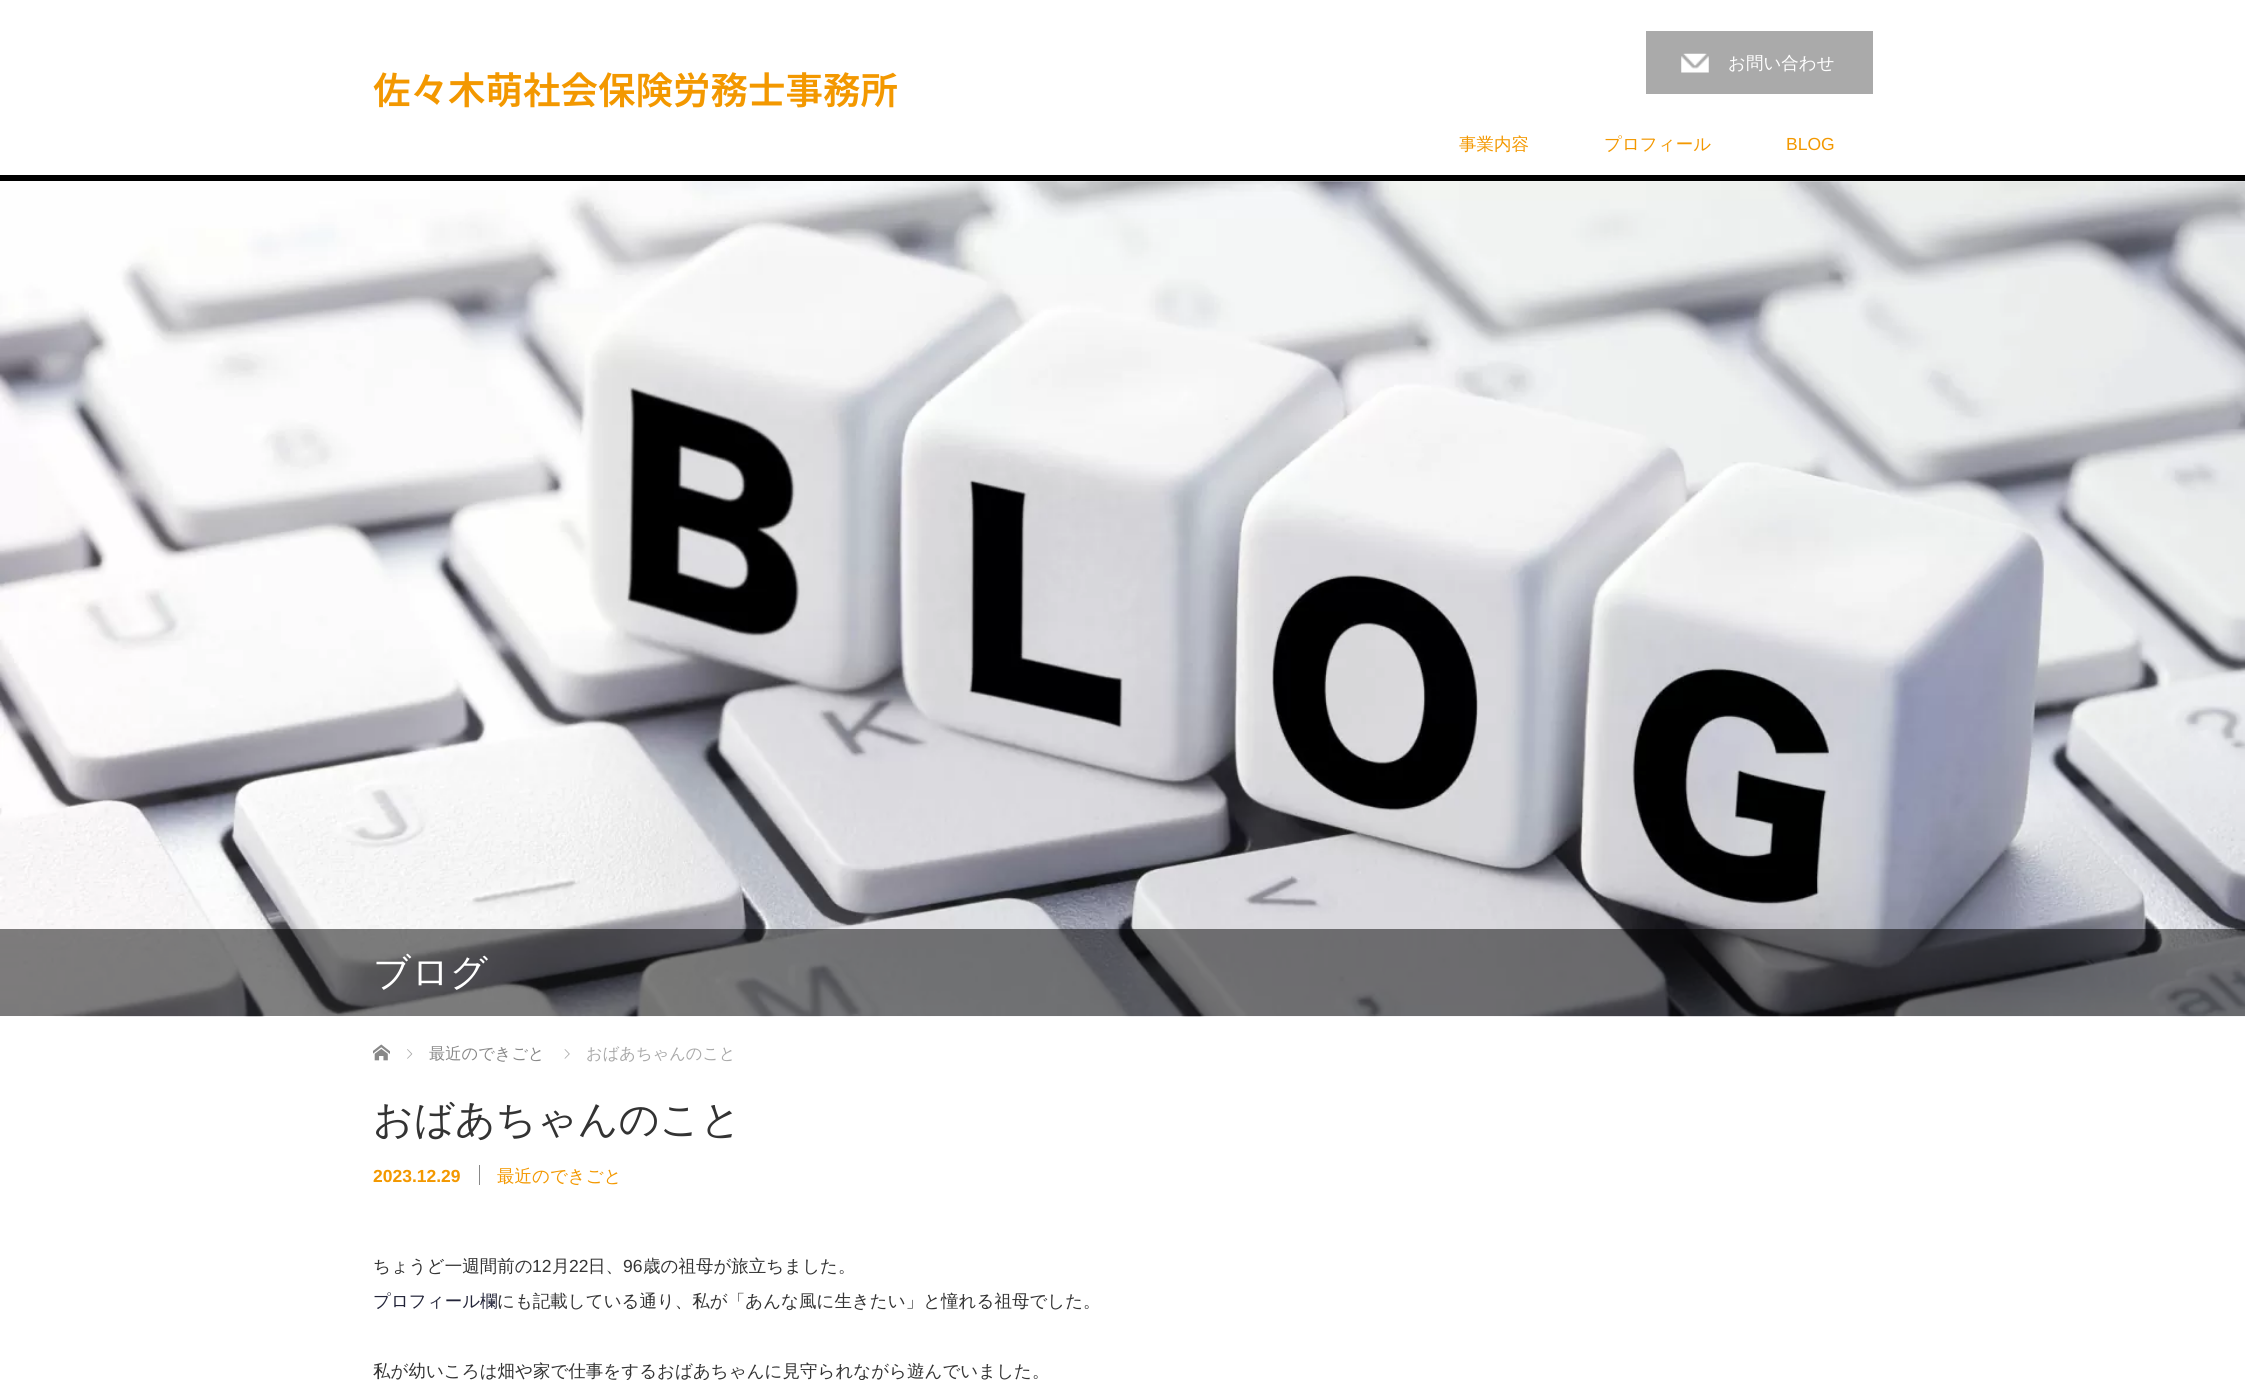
#include <cairo.h>
#include <math.h>
#include <stddef.h>

typedef struct { const char *family; double size; int italic, bold; unsigned color; } style_t;
static cairo_t *ctx;

static void ink(unsigned color) {
    cairo_set_source_rgb(ctx, (color >> 16) / 255.0, (color >> 8 & 255) / 255.0, (color & 255) / 255.0);
}

static void write(double x, double y, const char *s, const style_t *st) {
    cairo_select_font_face(ctx, st->family, st->italic ? CAIRO_FONT_SLANT_ITALIC : CAIRO_FONT_SLANT_NORMAL,
        st->bold ? CAIRO_FONT_WEIGHT_BOLD : CAIRO_FONT_WEIGHT_NORMAL);
    cairo_set_font_size(ctx, st->size);
    ink(st->color);
    cairo_move_to(ctx, x, y);
    cairo_show_text(ctx, s);
}

static void block(double x, double y, double w, double h, unsigned color) {
    ink(color);
    cairo_rectangle(ctx, x, y, w, h);
    cairo_fill(ctx);
}

static void paste(const char *path, double x, double y, double w, double h) {
    cairo_surface_t *image = cairo_image_surface_create_from_png(path);
    cairo_save(ctx);
    cairo_set_source_surface(ctx, image, x, y);
    cairo_rectangle(ctx, x, y, w, h);
    cairo_fill(ctx);
    cairo_restore(ctx);
    cairo_surface_destroy(image);
}

static const style_t s1 = {"WenQuanYi Zen Hei Medium", 17.5, 0, 0, 0xffffff};
static const style_t s2 = {"Noto Sans JP SemiBold", 37.5, 0, 0, 0xf39800};
static const style_t s3 = {"WenQuanYi Zen Hei Medium", 17.5, 0, 0, 0xf39800};
static const style_t s4 = {"Liberation Sans", 17.5, 0, 0, 0xf39800};
static const style_t s5 = {"WenQuanYi Zen Hei Medium", 37.5, 0, 0, 0xffffff};
static const style_t s6 = {"WenQuanYi Zen Hei Medium", 16.25, 0, 0, 0x888888};
static const style_t s7 = {"WenQuanYi Zen Hei Medium", 16.25, 0, 0, 0xaaaaaa};
static const style_t s8 = {"WenQuanYi Zen Hei Medium", 40, 0, 0, 0x333333};
static const style_t s9 = {"Liberation Sans", 17.5, 0, 1, 0xf39800};
static const style_t s10 = {"WenQuanYi Zen Hei Medium", 17.5, 0, 0, 0x333333};
static const style_t s11 = {"Liberation Sans", 17.5, 0, 0, 0x333333};
static const style_t s12 = {"WenQuanYi Zen Hei Medium", 17.5, 0, 0, 0x222439};

int main(void) {
    cairo_surface_t *surface = cairo_image_surface_create(CAIRO_FORMAT_RGB24, 2245, 1380);
    ctx = cairo_create(surface);
    cairo_font_options_t *options = cairo_font_options_create();
    cairo_font_options_set_hint_metrics(options, CAIRO_HINT_METRICS_OFF);
    cairo_font_options_set_hint_style(options, CAIRO_HINT_STYLE_NONE);
    cairo_set_font_options(ctx, options);
    cairo_set_miter_limit(ctx, 4);
    ink(0xffffff);
    cairo_paint(ctx);
    block(0, 175, 2245, 6, 0x000000);
    block(1646, 31, 227, 63, 0xaaaaaa);
    paste("pic1.png", 1681, 53, 28, 20);
    write(1728, 69, "お問い合わせ", &s1);
    write(373, 104, "佐々木萌社会保険労務士事務所", &s2);
    write(1459, 150, "事業内容", &s3);
    write(1604, 150, "プロフィール", &s3);
    write(1786, 150, "BLOG", &s4);
    paste("pic2.png", 0, 181, 2245, 836);
    cairo_set_source_rgba(ctx, 0, 0, 0, 0.5);
    cairo_rectangle(ctx, 0, 929, 2245, 87);
    cairo_fill(ctx);
    write(373, 985, "ブログ", &s5);
    paste("pic3.png", 373, 1044, 17, 17);
    paste("pic4.png", 407, 1049, 6, 10);
    write(429, 1059, "最近のできごと", &s6);
    paste("pic5.png", 564, 1049, 6, 10);
    write(586, 1059, "おばあちゃんのこと", &s7);
    write(373, 1133, "おばあちゃんのこと", &s8);
    write(373, 1182, "2023.12.29", &s9);
    block(479, 1165, 1, 20, 0x888888);
    write(497, 1182, "最近のできごと", &s3);
    write(373, 1272, "ちょうど一週間前の", &s10);
    write(532, 1272, "12", &s11);
    write(552, 1272, "月", &s10);
    write(569, 1272, "22", &s11);
    write(588, 1272, "日、", &s10);
    write(623, 1272, "96", &s11);
    write(643, 1272, "歳の祖母が旅立ちました。", &s10);
    write(373, 1307, "プロフィール欄", &s12);
    write(497, 1307, "にも記載している通り、私が「あんな風に生きたい」と憧れる祖母でした。", &s10);
    write(373, 1377, "私が幼いころは畑や家で仕事をするおばあちゃんに見守られながら遊んでいました。", &s10);
    cairo_surface_write_to_png(surface, "screenshot.png");
    cairo_font_options_destroy(options);
    cairo_destroy(ctx);
    cairo_surface_destroy(surface);
    return 0;
}
